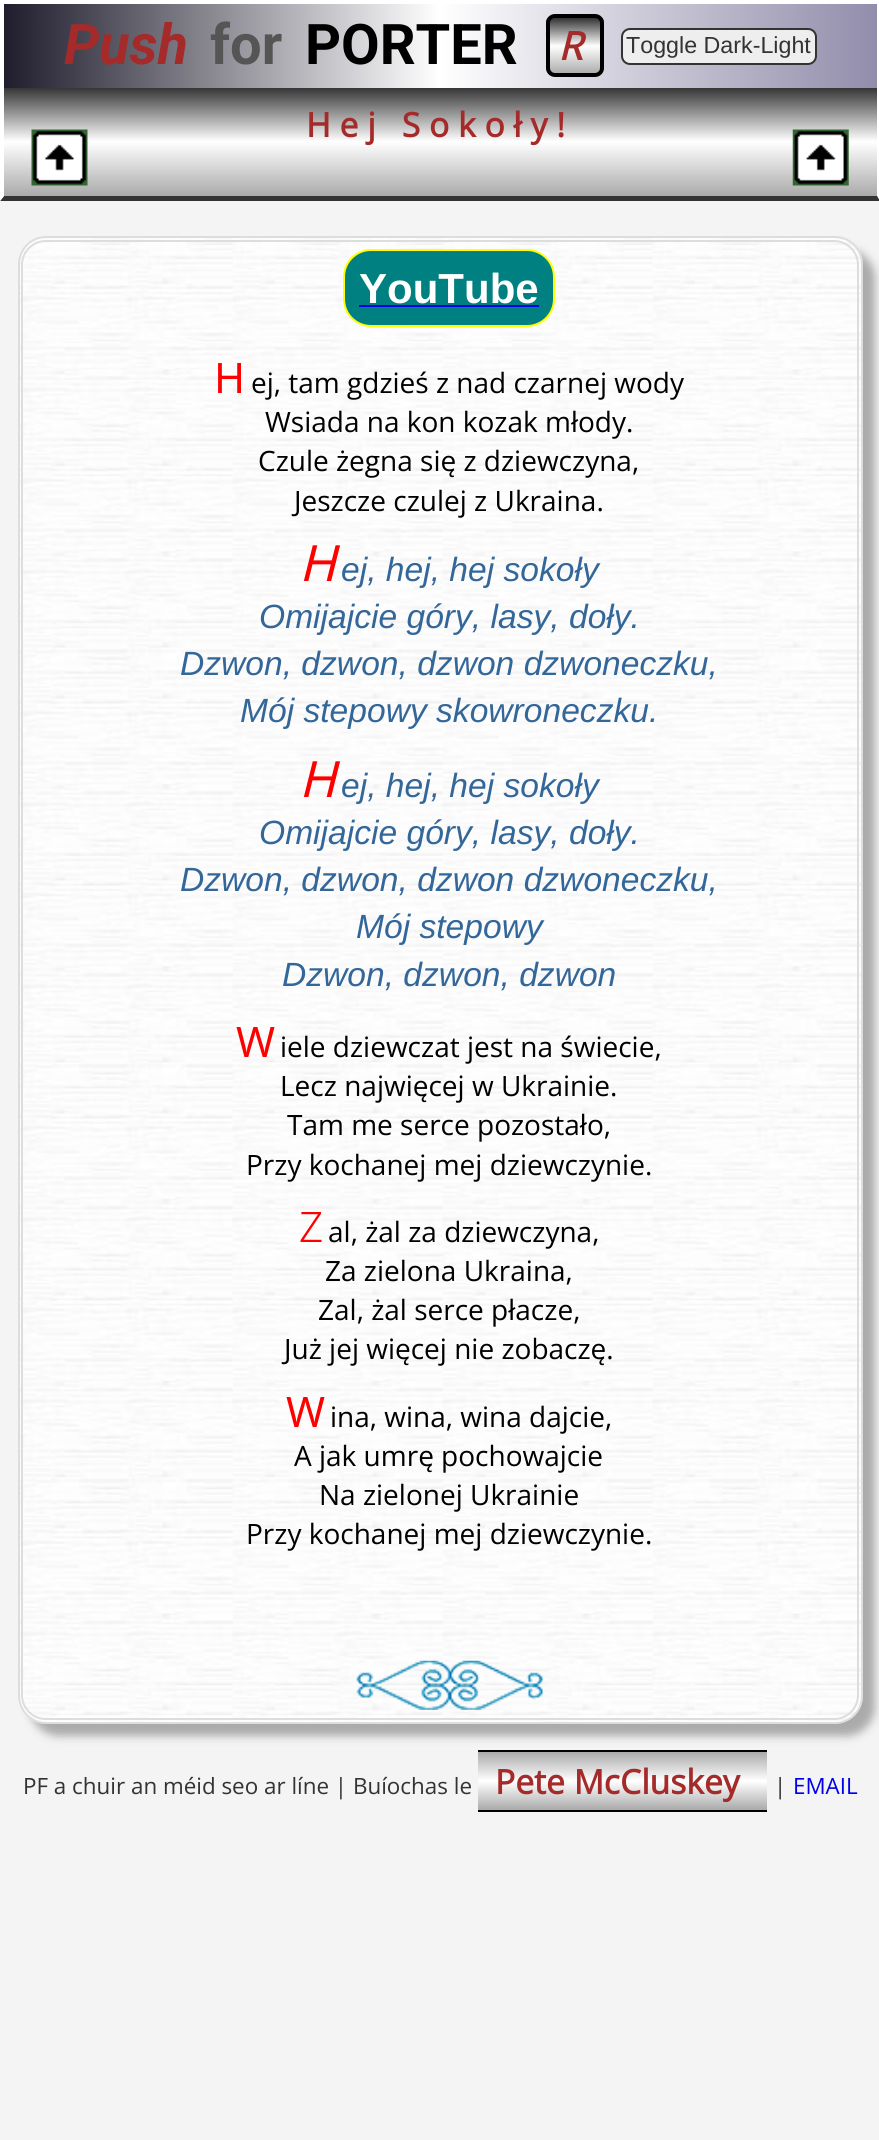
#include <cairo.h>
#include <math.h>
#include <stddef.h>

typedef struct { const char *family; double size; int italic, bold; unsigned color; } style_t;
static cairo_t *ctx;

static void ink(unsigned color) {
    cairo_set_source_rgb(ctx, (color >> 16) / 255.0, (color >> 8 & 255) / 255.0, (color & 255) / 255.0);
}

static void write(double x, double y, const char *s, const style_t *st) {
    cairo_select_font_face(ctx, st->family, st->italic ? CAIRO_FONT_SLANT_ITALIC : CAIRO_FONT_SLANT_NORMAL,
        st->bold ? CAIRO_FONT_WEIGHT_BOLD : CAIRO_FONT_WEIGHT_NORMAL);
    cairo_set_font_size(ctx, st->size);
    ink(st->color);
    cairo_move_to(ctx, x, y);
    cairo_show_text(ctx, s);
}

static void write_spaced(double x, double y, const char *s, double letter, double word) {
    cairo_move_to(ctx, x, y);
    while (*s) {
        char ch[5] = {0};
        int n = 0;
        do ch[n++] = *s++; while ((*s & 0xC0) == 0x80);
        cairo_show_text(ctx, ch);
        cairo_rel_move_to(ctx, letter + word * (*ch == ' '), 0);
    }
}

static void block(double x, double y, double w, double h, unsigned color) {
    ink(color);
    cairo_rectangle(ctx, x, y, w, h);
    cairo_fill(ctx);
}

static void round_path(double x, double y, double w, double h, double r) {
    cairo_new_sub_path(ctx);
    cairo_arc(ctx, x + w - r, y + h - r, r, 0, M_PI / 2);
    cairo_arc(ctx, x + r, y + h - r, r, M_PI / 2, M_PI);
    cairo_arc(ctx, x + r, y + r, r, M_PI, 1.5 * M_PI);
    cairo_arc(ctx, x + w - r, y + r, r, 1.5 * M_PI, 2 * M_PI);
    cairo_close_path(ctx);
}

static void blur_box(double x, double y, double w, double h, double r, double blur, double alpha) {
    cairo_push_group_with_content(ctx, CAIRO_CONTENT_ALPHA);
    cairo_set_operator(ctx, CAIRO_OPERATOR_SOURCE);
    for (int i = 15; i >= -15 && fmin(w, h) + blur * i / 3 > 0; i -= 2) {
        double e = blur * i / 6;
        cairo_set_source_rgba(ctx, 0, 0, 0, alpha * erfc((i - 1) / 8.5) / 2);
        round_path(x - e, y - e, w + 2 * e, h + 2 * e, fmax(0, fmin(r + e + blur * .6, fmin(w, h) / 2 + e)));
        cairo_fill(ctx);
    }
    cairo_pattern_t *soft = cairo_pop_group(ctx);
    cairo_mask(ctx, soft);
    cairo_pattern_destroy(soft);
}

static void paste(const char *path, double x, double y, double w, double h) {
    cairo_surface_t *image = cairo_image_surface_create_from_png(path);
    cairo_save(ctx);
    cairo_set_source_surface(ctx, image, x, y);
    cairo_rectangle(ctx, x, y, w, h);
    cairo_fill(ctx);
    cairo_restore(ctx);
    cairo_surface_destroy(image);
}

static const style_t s1 = {"Roboto", 56, 1, 1, 0xa52a2a};
static const style_t s2 = {"Roboto", 56, 0, 1, 0x555555};
static const style_t s3 = {"Roboto", 56, 0, 1, 0x000000};
static const style_t s4 = {"Open Sans", 39, 1, 1, 0xa52a2a};
static const style_t s5 = {"Liberation Sans", 23.25, 0, 0, 0x333333};
static const style_t s6 = {"Liberation Sans", 42, 0, 1, 0xffffff};
static const style_t s7 = {"Noto Sans", 42, 0, 0, 0xff0000};
static const style_t s8 = {"Open Sans", 28, 0, 0, 0x000000};
static const style_t s9 = {"Noto Sans", 50, 1, 0, 0xff0000};
static const style_t s10 = {"Liberation Sans", 33.6, 1, 0, 0x336699};
static const style_t s11 = {"Noto Sans Light", 42, 0, 0, 0xff0000};
static const style_t s12 = {"Open Sans", 22.4, 0, 0, 0x333333};
static const style_t s13 = {"Open Sans", 33.6, 0, 1, 0xa52a2a};
static const style_t s14 = {"Open Sans", 22.4, 0, 0, 0x0000ee};

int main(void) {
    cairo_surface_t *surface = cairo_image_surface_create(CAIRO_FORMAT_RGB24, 879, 2140);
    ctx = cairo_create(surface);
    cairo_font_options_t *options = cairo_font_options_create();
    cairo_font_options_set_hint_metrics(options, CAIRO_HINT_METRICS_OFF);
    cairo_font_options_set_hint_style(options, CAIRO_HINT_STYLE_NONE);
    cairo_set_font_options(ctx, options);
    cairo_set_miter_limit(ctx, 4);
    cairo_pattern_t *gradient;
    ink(0xf4f4f4);
    cairo_paint(ctx);
    gradient = cairo_pattern_create_linear(3.5, 46, 877, 45);
    cairo_pattern_add_color_stop_rgba(gradient, 0, 0.122, 0.11, 0.173, 1);
    cairo_pattern_add_color_stop_rgba(gradient, 0.5, 1, 1, 1, 1);
    cairo_pattern_add_color_stop_rgba(gradient, 1, 0.573, 0.553, 0.671, 1);
    cairo_set_source(ctx, gradient);
    cairo_pattern_destroy(gradient);
    cairo_rectangle(ctx, 4, 4, 873, 84);
    cairo_fill(ctx);
    block(0, 0, 879, 4, 0xffffff);
    block(877, 0, 2, 88, 0xffffff);
    block(0, 0, 4, 88, 0xffffff);
    write(64, 64, "Push", &s1);
    write(210, 64, "for", &s2);
    write(305, 64, "PORTER", &s3);
    cairo_save(ctx);
    round_path(546, 14, 58, 63, 9);
    cairo_clip(ctx);
    gradient = cairo_pattern_create_linear(575, 18, 575, 74);
    cairo_pattern_add_color_stop_rgba(gradient, 0, 0.2, 0.2, 0.2, 1);
    cairo_pattern_add_color_stop_rgba(gradient, 0.5, 1, 1, 1, 1);
    cairo_pattern_add_color_stop_rgba(gradient, 1, 0.667, 0.667, 0.667, 1);
    cairo_set_source(ctx, gradient);
    cairo_pattern_destroy(gradient);
    cairo_rectangle(ctx, 546, 18, 58, 56);
    cairo_fill(ctx);
    cairo_restore(ctx);
    round_path(548, 16, 54, 59, 7);
    cairo_set_line_width(ctx, 4);
    cairo_stroke(ctx);
    write(558, 60, "R", &s4);
    ink(0xeeeeee);
    round_path(622, 29, 194, 35, 8);
    cairo_fill_preserve(ctx);
    ink(0x333333);
    cairo_set_line_width(ctx, 2);
    cairo_stroke(ctx);
    write(626, 53, "Toggle Dark-Light", &s5);
    gradient = cairo_pattern_create_linear(440, 87, 440, 196);
    cairo_pattern_add_color_stop_rgba(gradient, 0, 0.2, 0.2, 0.2, 1);
    cairo_pattern_add_color_stop_rgba(gradient, 0.5, 1, 1, 1, 1);
    cairo_pattern_add_color_stop_rgba(gradient, 1, 0.667, 0.667, 0.667, 1);
    cairo_set_source(ctx, gradient);
    cairo_pattern_destroy(gradient);
    cairo_rectangle(ctx, 4, 88, 873, 108);
    cairo_fill(ctx);
    ink(0xffffff);
    cairo_new_path(ctx);
    cairo_move_to(ctx, 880, 88);
    cairo_line_to(ctx, 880, 201);
    cairo_line_to(ctx, 877, 196);
    cairo_line_to(ctx, 877, 88);
    cairo_close_path(ctx);
    cairo_fill(ctx);
    ink(0x333333);
    cairo_new_path(ctx);
    cairo_move_to(ctx, 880, 201);
    cairo_line_to(ctx, 0, 201);
    cairo_line_to(ctx, 4, 196);
    cairo_line_to(ctx, 877, 196);
    cairo_close_path(ctx);
    cairo_fill(ctx);
    ink(0xffffff);
    cairo_new_path(ctx);
    cairo_move_to(ctx, 0, 201);
    cairo_line_to(ctx, 0, 88);
    cairo_line_to(ctx, 4, 88);
    cairo_line_to(ctx, 4, 196);
    cairo_close_path(ctx);
    cairo_fill(ctx);
    paste("pic1.png", 31, 129, 57, 57);
    cairo_select_font_face(ctx, "Open Sans", CAIRO_FONT_SLANT_NORMAL, CAIRO_FONT_WEIGHT_BOLD);
    cairo_set_font_size(ctx, 33.6);
    ink(0xa52a2a);
    write_spaced(306, 137, "Hej Sokoły!", 8.75, 0);
    paste("pic2.png", 792, 129, 57, 57);
    ink(0xaaaaaa);
    blur_box(30, 249, 845, 1487, 28, 4.5, 1);
    paste("pic3.png", 18, 236, 845, 1488);
    round_path(19, 237, 843, 1486, 27);
    ink(0xdddddd);
    cairo_stroke(ctx);
    round_path(22, 241, 836, 1478, 24);
    cairo_stroke(ctx);
    ink(0x008080);
    round_path(344, 250, 210, 76, 27);
    cairo_fill_preserve(ctx);
    ink(0xffff00);
    cairo_stroke(ctx);
    write(359, 303, "YouTube", &s6);
    block(359, 305, 180, 2, 0x0000ee);
    write(214, 393, "H", &s7);
    write(251, 393, "ej, tam gdzieś z nad czarnej wody", &s8);
    write(265, 432, "Wsiada na kon kozak młody.", &s8);
    write(258, 471, "Czule żegna się z dziewczyna,", &s8);
    write(294, 511, "Jeszcze czulej z Ukraina.", &s8);
    write(299, 581, "H", &s9);
    write(341, 581, "ej, hej, hej sokoły", &s10);
    write(259, 628, "Omijajcie góry, lasy, doły.", &s10);
    write(180, 675, "Dzwon, dzwon, dzwon dzwoneczku,", &s10);
    write(240, 722, "Mój stepowy skowroneczku.", &s10);
    write(299, 797, "H", &s9);
    write(341, 797, "ej, hej, hej sokoły", &s10);
    write(259, 844, "Omijajcie góry, lasy, doły.", &s10);
    write(180, 891, "Dzwon, dzwon, dzwon dzwoneczku,", &s10);
    write(356, 938, "Mój stepowy", &s10);
    write(282, 986, "Dzwon, dzwon, dzwon", &s10);
    write(236, 1057, "W", &s7);
    write(280, 1057, "iele dziewczat jest na świecie,", &s8);
    write(280, 1096, "Lecz najwięcej w Ukrainie.", &s8);
    write(287, 1135, "Tam me serce pozostało,", &s8);
    write(246, 1175, "Przy kochanej mej dziewczynie.", &s8);
    write(299, 1242, "Z", &s11);
    write(328, 1242, "al, żal za dziewczyna,", &s8);
    write(325, 1281, "Za zielona Ukraina,", &s8);
    write(318, 1320, "Zal, żal serce płacze,", &s8);
    write(284, 1359, "Już jej więcej nie zobaczę.", &s8);
    write(286, 1427, "W", &s7);
    write(330, 1427, "ina, wina, wina dajcie,", &s8);
    write(294, 1466, "A jak umrę pochowajcie", &s8);
    write(319, 1505, "Na zielonej Ukrainie", &s8);
    write(246, 1544, "Przy kochanej mej dziewczynie.", &s8);
    paste("pic4.png", 356, 1660, 187, 50);
    write(23, 1794, "PF a chuir an méid seo ar líne | Buíochas le", &s12);
    gradient = cairo_pattern_create_linear(622, 1752, 622, 1810);
    cairo_pattern_add_color_stop_rgba(gradient, 0, 0.667, 0.667, 0.667, 1);
    cairo_pattern_add_color_stop_rgba(gradient, 0.5, 1, 1, 1, 1);
    cairo_pattern_add_color_stop_rgba(gradient, 1, 0.667, 0.667, 0.667, 1);
    cairo_set_source(ctx, gradient);
    cairo_pattern_destroy(gradient);
    cairo_rectangle(ctx, 478, 1752, 289, 58);
    cairo_fill(ctx);
    write(495, 1794, "Pete McCluskey", &s13);
    block(478, 1750, 289, 2, 0x000000);
    block(478, 1810, 289, 2, 0x000000);
    write(774, 1794, "|", &s12);
    write(793, 1794, "EMAIL", &s14);
    cairo_surface_write_to_png(surface, "screenshot.png");
    cairo_font_options_destroy(options);
    cairo_destroy(ctx);
    cairo_surface_destroy(surface);
    return 0;
}
